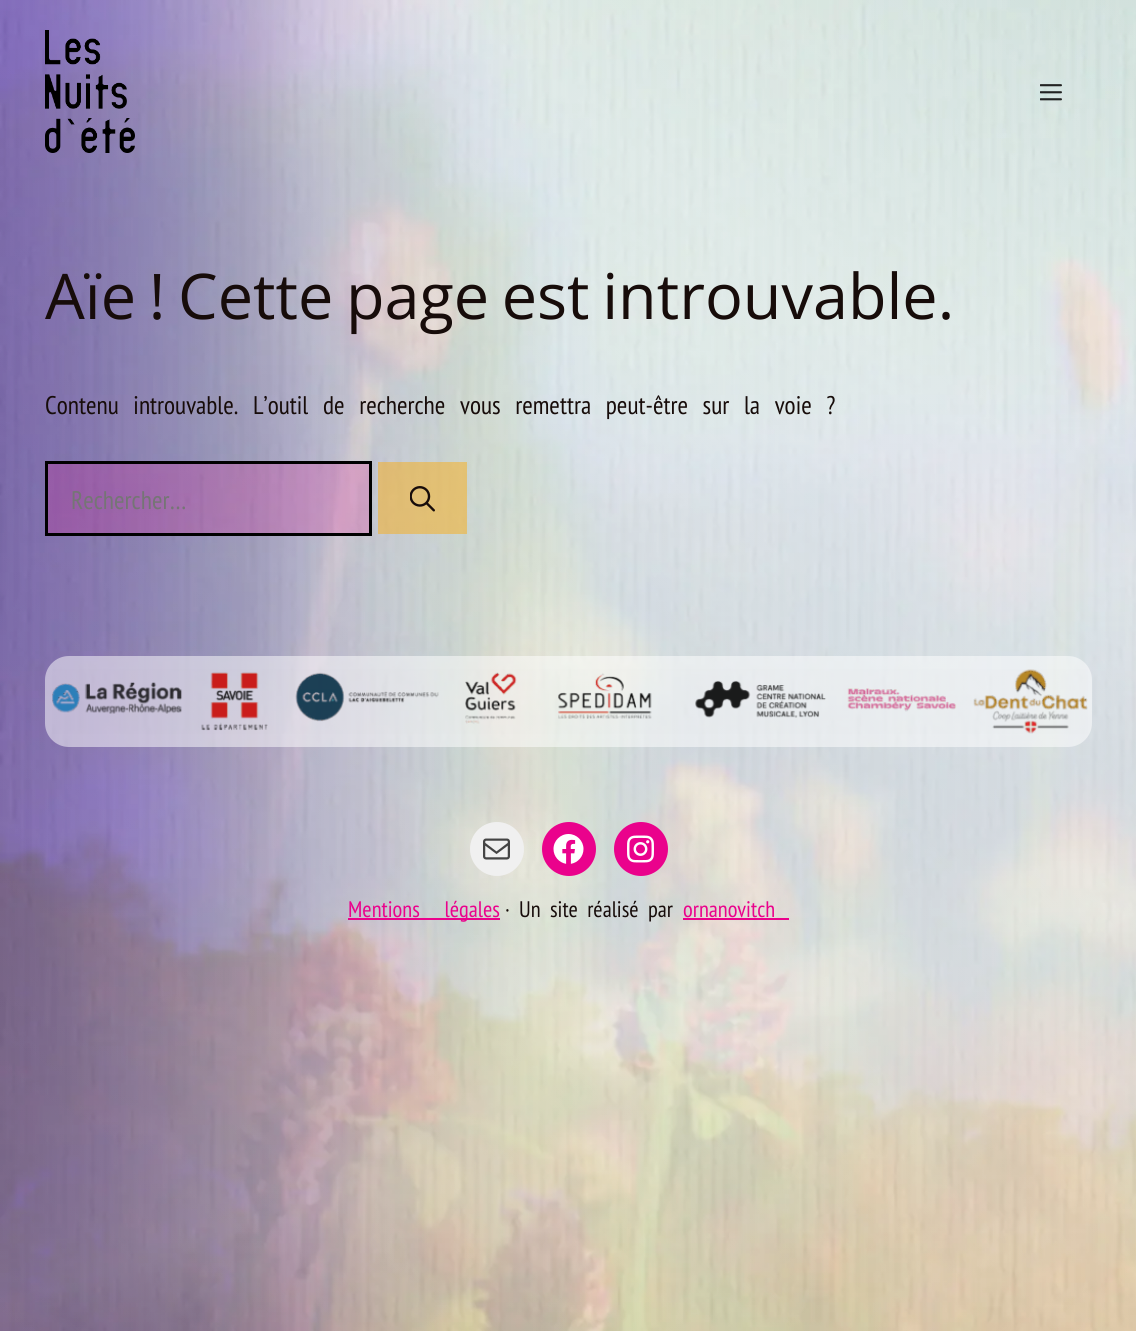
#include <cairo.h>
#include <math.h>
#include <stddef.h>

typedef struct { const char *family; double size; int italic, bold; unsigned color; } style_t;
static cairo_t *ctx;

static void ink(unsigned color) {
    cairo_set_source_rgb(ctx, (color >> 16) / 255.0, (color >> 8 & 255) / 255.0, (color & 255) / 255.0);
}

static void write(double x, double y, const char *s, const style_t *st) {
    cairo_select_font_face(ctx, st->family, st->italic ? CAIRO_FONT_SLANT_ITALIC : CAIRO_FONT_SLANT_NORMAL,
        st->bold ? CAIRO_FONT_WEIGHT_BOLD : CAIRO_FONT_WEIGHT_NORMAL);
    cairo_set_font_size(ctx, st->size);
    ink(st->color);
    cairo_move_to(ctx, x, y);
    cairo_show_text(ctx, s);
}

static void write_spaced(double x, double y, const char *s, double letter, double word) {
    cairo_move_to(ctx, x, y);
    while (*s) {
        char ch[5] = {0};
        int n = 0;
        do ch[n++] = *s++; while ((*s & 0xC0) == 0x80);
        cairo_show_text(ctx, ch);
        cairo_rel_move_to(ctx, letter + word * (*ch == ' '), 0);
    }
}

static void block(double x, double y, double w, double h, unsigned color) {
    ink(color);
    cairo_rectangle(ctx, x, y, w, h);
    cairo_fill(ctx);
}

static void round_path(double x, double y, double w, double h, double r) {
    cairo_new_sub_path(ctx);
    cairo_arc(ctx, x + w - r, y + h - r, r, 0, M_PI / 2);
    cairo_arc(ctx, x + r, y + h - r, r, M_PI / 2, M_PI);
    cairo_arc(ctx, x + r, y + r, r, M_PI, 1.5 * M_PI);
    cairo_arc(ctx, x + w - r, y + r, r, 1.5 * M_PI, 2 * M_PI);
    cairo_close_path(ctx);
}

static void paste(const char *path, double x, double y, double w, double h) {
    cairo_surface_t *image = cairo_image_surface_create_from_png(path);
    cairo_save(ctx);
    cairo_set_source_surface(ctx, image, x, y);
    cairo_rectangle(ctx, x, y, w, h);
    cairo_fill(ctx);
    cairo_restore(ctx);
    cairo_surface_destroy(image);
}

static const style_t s1 = {"PT Sans Narrow", 25.5, 0, 0, 0x757575};
static const style_t s2 = {"PT Sans Narrow", 22.5, 0, 0, 0xea028c};

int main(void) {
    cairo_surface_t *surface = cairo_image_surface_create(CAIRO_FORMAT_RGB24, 1136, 1331);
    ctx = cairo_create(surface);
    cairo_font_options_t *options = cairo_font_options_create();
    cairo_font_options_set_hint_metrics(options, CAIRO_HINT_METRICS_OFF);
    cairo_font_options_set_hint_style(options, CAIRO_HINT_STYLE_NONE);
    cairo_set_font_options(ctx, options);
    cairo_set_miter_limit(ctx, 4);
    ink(0xffffff);
    cairo_paint(ctx);
    paste("pic1.png", 0, 0, 1136, 1331);
    paste("pic2.png", 45, 30, 90, 123);
    paste("pic3.png", 1040, 84, 22, 17);
    cairo_select_font_face(ctx, "Open Sans", CAIRO_FONT_SLANT_NORMAL, CAIRO_FONT_WEIGHT_NORMAL);
    cairo_set_font_size(ctx, 63);
    ink(0x170c0a);
    write_spaced(45, 319, "Aïe ! Cette page est introuvable.", 0, -3.75);
    cairo_select_font_face(ctx, "PT Sans Narrow", CAIRO_FONT_SLANT_NORMAL, CAIRO_FONT_WEIGHT_NORMAL);
    cairo_set_font_size(ctx, 25.5);
    write_spaced(45, 414, "Contenu introuvable. L’outil de recherche vous remettra peut-être sur la voie ?", 0, 9.25);
    cairo_set_source_rgba(ctx, 0.918, 0.008, 0.549, 0.2);
    cairo_rectangle(ctx, 46.5, 462.5, 324, 72);
    cairo_fill_preserve(ctx);
    ink(0x000000);
    cairo_set_line_width(ctx, 3);
    cairo_stroke(ctx);
    write(71, 509, "Rechercher…", &s1);
    cairo_set_source_rgba(ctx, 0.98, 0.686, 0.098, 0.5);
    cairo_rectangle(ctx, 378, 462, 89, 72);
    cairo_fill(ctx);
    paste("pic4.png", 410, 486, 25, 26);
    cairo_set_source_rgba(ctx, 1, 1, 1, 0.5);
    round_path(45, 656, 1047, 91, 24);
    cairo_fill(ctx);
    paste("pic5.png", 52, 669, 1036, 65);
    ink(0xf0f0f0);
    cairo_arc(ctx, 497, 849, 27, 0, 2 * M_PI);
    cairo_fill(ctx);
    paste("pic6.png", 483, 838, 27, 22);
    ink(0xea028c);
    cairo_arc(ctx, 569, 849, 27, 0, 2 * M_PI);
    cairo_fill(ctx);
    paste("pic7.png", 553, 834, 31, 30);
    cairo_arc(ctx, 641, 849, 27, 0, 2 * M_PI);
    cairo_fill(ctx);
    paste("pic8.png", 627, 835, 27, 28);
    block(348, 918, 152, 2, 0xea028c);
    cairo_set_font_size(ctx, 22.5);
    write_spaced(348, 917, "Mentions légales", 0, 20);
    ink(0x170c0a);
    write_spaced(505, 917, "· Un site réalisé par", 0, 4.5);
    write(683, 917, "ornanovitch", &s2);
    block(683, 918, 106, 2, 0xea028c);
    cairo_surface_write_to_png(surface, "screenshot.png");
    cairo_font_options_destroy(options);
    cairo_destroy(ctx);
    cairo_surface_destroy(surface);
    return 0;
}
